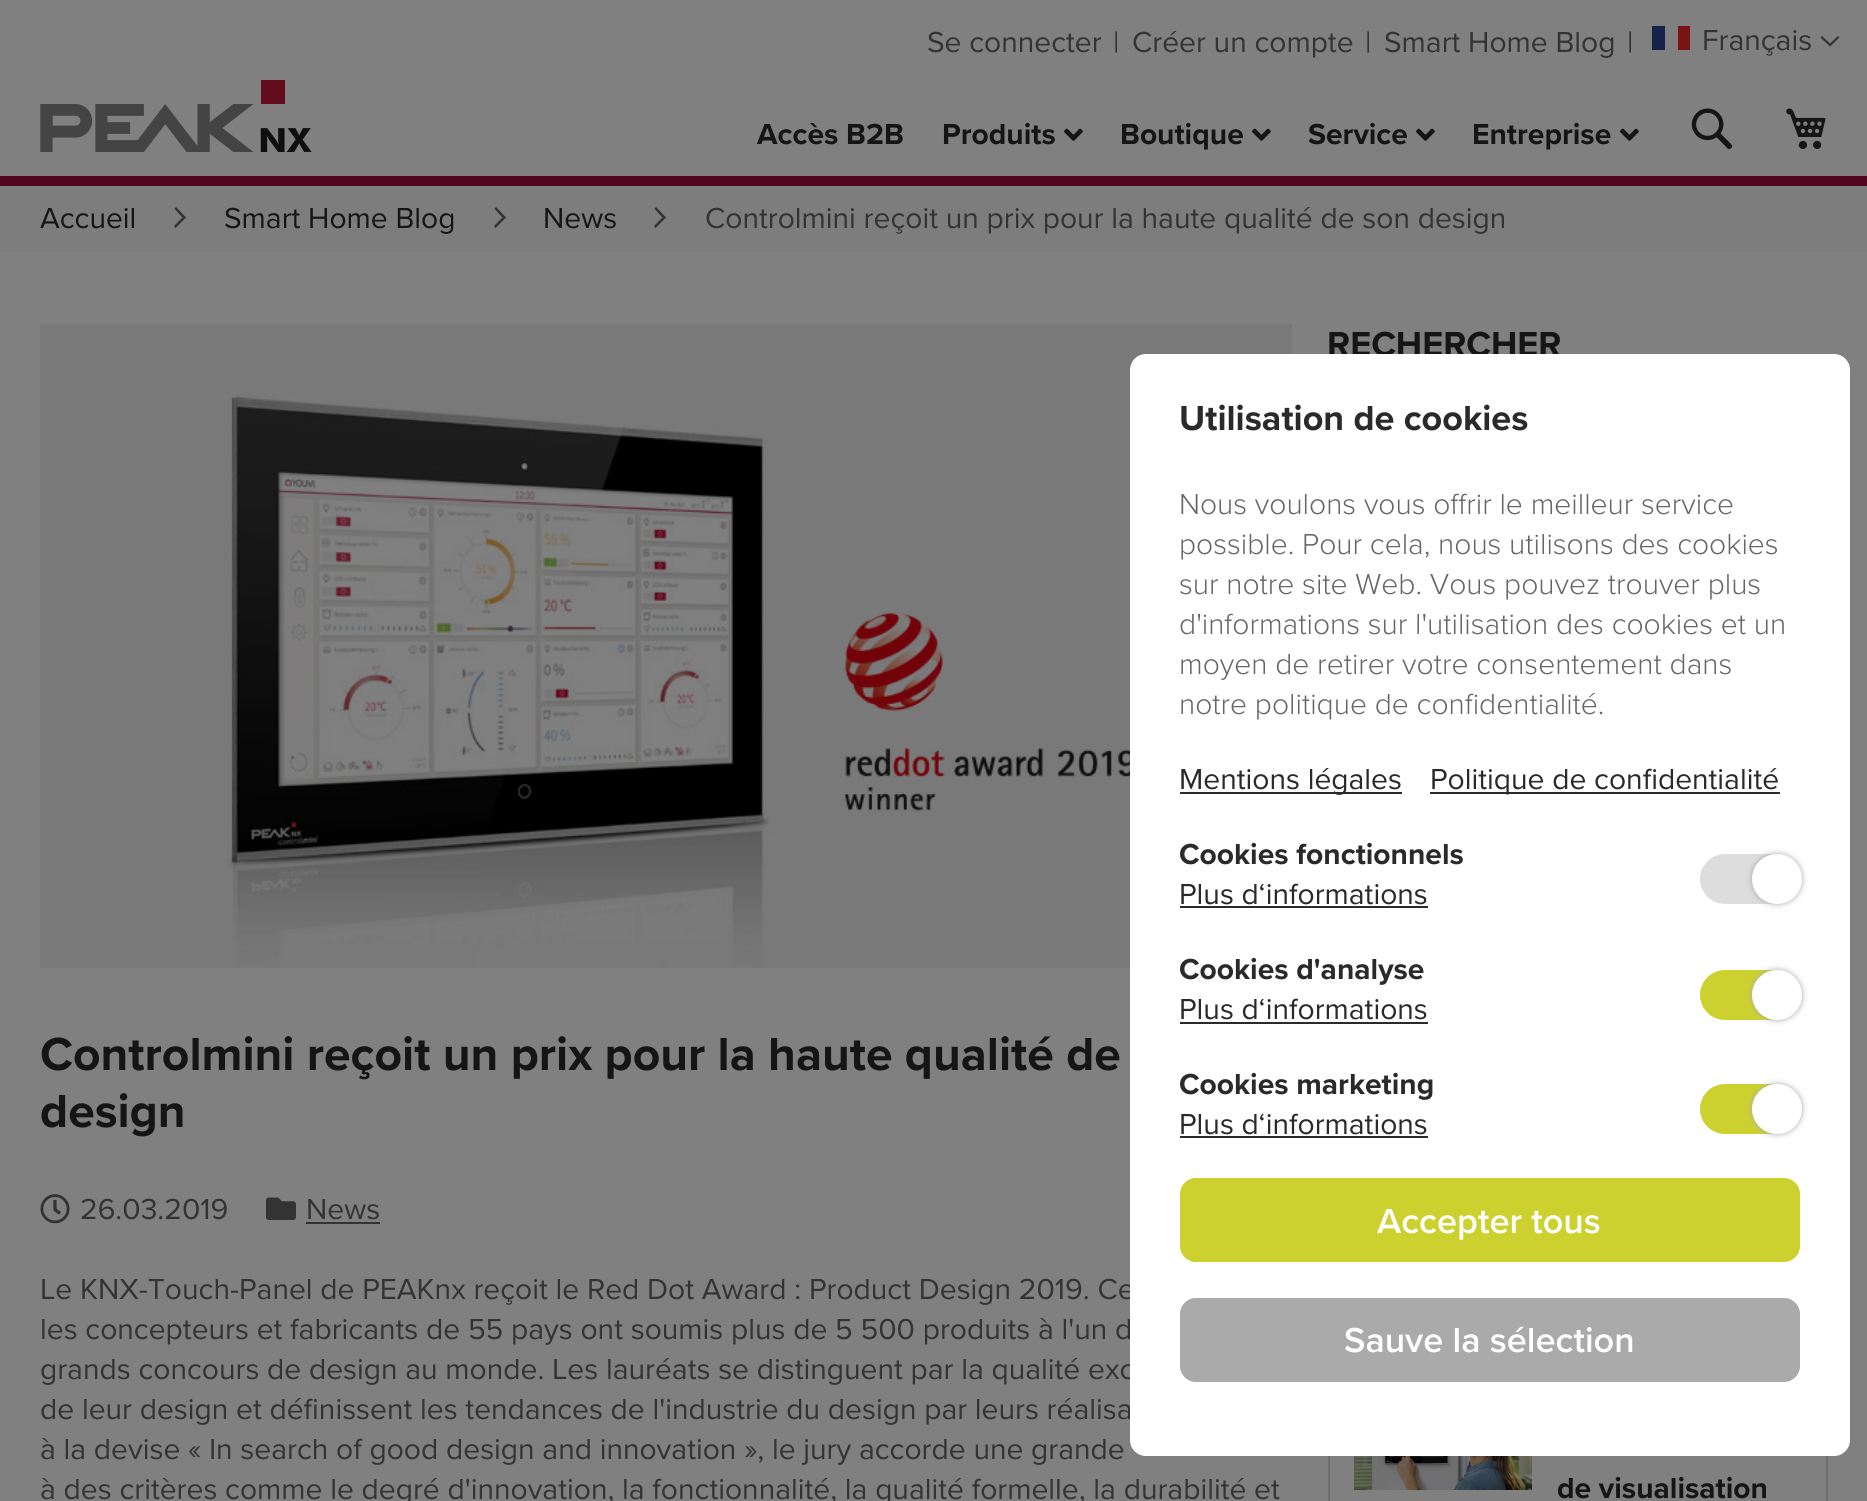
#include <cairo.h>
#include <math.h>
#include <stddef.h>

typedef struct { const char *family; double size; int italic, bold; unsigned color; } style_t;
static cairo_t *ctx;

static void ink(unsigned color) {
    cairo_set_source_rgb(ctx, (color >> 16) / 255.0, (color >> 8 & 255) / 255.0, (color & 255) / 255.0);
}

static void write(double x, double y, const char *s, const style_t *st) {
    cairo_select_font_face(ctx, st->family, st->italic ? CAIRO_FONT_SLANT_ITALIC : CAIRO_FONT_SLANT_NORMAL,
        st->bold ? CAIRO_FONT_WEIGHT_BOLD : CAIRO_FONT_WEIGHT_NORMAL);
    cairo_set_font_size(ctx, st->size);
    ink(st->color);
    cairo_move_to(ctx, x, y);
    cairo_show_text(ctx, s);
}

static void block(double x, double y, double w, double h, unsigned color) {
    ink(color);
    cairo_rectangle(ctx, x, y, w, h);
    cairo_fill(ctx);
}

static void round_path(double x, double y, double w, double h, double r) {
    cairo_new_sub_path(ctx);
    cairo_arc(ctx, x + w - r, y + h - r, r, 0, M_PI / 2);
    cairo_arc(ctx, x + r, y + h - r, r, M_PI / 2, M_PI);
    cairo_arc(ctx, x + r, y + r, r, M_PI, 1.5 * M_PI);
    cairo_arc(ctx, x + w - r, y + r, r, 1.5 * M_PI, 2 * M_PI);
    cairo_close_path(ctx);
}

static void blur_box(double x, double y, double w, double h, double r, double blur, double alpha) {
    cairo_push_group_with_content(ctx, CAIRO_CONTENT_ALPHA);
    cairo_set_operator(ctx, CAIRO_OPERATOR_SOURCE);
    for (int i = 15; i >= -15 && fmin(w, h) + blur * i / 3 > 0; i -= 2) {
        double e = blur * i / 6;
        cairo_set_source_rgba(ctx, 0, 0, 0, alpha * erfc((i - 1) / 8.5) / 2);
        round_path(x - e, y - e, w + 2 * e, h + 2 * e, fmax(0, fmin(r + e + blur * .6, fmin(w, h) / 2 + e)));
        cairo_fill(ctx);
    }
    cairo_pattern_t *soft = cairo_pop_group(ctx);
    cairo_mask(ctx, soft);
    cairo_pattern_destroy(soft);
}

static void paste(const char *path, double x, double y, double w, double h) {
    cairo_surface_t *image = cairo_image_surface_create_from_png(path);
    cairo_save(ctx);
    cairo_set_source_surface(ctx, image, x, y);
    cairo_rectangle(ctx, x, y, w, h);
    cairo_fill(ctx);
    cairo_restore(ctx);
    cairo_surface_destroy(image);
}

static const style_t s1 = {"Proxima Nova", 30, 0, 0, 0x333333};
static const style_t s2 = {"Proxima Nova", 30, 0, 1, 0x151515};
static const style_t s3 = {"Proxima Nova", 30, 0, 0, 0x151515};
static const style_t s4 = {"Proxima Nova", 48, 0, 1, 0x151515};
static const style_t s5 = {"Proxima Nova", 36, 0, 1, 0x151515};
static const style_t s6 = {"Proxima Nova", 36, 0, 1, 0x2a2a2a};
static const style_t s7 = {"Proxima Nova Light", 30, 0, 0, 0x666666};
static const style_t s8 = {"Proxima Nova", 30, 0, 0, 0x2a2a2a};
static const style_t s9 = {"Proxima Nova", 30, 0, 1, 0x2a2a2a};
static const style_t s10 = {"Proxima Nova SemiBold", 36, 0, 0, 0xffffff};

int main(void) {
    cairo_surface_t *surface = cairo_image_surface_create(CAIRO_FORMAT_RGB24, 1867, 1501);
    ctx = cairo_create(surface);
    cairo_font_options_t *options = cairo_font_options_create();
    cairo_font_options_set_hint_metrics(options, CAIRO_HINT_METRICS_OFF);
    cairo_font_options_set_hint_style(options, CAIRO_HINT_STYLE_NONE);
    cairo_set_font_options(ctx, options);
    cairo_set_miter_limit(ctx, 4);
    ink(0x808080);
    cairo_paint(ctx);
    block(0, 176, 1867, 10, 0x53051f);
    write(927, 52, "Se connecter", &s1);
    write(1113, 52, "|", &s1);
    write(1132, 52, "Créer un compte", &s1);
    write(1365, 52, "|", &s1);
    write(1384, 52, "Smart Home Blog", &s1);
    write(1627, 52, "|", &s1);
    block(1652, 26, 13, 24, 0x17234a);
    block(1678, 26, 12, 24, 0x7a1313);
    write(1702, 50, "Français", &s1);
    cairo_new_path(ctx);
    cairo_move_to(ctx, 1830, 43.5);
    cairo_line_to(ctx, 1822, 36);
    cairo_line_to(ctx, 1820.5, 37.5);
    cairo_line_to(ctx, 1830, 46.5);
    cairo_line_to(ctx, 1839.5, 37.5);
    cairo_line_to(ctx, 1838, 36);
    cairo_close_path(ctx);
    cairo_fill(ctx);
    paste("pic1.png", 40, 80, 272, 72);
    write(757, 144, "Accès B2B", &s2);
    write(942, 144, "Produits", &s2);
    paste("pic2.png", 1064, 128, 19, 13);
    write(1120, 144, "Boutique", &s2);
    paste("pic2.png", 1252, 128, 19, 13);
    write(1308, 144, "Service", &s2);
    paste("pic2.png", 1416, 128, 19, 13);
    write(1472, 144, "Entreprise", &s2);
    paste("pic2.png", 1620, 128, 19, 13);
    paste("pic3.png", 1691, 108, 42, 41);
    paste("pic4.png", 1786, 108, 40, 41);
    block(0, 186, 1867, 66, 0x7d7d7d);
    write(40, 228, "Accueil", &s3);
    ink(0x333333);
    cairo_new_path(ctx);
    cairo_move_to(ctx, 186, 217.5);
    cairo_line_to(ctx, 176, 207);
    cairo_line_to(ctx, 174.5, 209);
    cairo_line_to(ctx, 182.5, 217.5);
    cairo_line_to(ctx, 174, 226);
    cairo_line_to(ctx, 175.5, 228);
    cairo_close_path(ctx);
    cairo_fill(ctx);
    write(224, 228, "Smart Home Blog", &s3);
    ink(0x333333);
    cairo_new_path(ctx);
    cairo_move_to(ctx, 506, 217.5);
    cairo_line_to(ctx, 496, 207);
    cairo_line_to(ctx, 494.5, 209);
    cairo_line_to(ctx, 502.5, 217.5);
    cairo_line_to(ctx, 494, 226);
    cairo_line_to(ctx, 495.5, 228);
    cairo_close_path(ctx);
    cairo_fill(ctx);
    write(543, 228, "News", &s3);
    ink(0x333333);
    cairo_new_path(ctx);
    cairo_move_to(ctx, 666, 217.5);
    cairo_line_to(ctx, 656, 207);
    cairo_line_to(ctx, 654.5, 209);
    cairo_line_to(ctx, 662.5, 217.5);
    cairo_line_to(ctx, 654, 226);
    cairo_line_to(ctx, 655.5, 228);
    cairo_close_path(ctx);
    cairo_fill(ctx);
    write(705, 228, "Controlmini reçoit un prix pour la haute qualité de son design", &s1);
    paste("pic5.png", 40, 324, 1252, 644);
    write(40, 1070, "Controlmini reçoit un prix pour la haute qualité de", &s4);
    write(40, 1127, "design", &s4);
    paste("pic6.png", 40, 1194, 30, 30);
    write(80, 1219, "26.03.2019", &s1);
    paste("pic7.png", 266, 1197, 30, 23);
    write(306, 1219, "News", &s1);
    block(306, 1222, 74, 2, 0x333333);
    write(40, 1299, "Le KNX-Touch-Panel de PEAKnx reçoit le Red Dot Award : Product Design 2019. Ce", &s1);
    write(40, 1339, "les concepteurs et fabricants de 55 pays ont soumis plus de 5 500 produits à l'un d", &s1);
    write(40, 1379, "grands concours de design au monde. Les lauréats se distinguent par la qualité exc", &s1);
    write(40, 1419, "de leur design et définissent les tendances de l'industrie du design par leurs réalisa", &s1);
    write(40, 1459, "à la devise « In search of good design and innovation », le jury accorde une grande", &s1);
    write(40, 1499, "à des critères comme le degré d'innovation, la fonctionnalité, la qualité formelle, la durabilité et", &s1);
    write(1327, 356, "RECHERCHER", &s5);
    cairo_rectangle(ctx, 1329, 1151, 498, 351);
    ink(0x6f6f6f);
    cairo_stroke(ctx);
    paste("pic8.png", 1354, 1456, 178, 34);
    write(1557, 1498, "de visualisation", &s2);
    ink(0xffffff);
    round_path(1130, 354, 720, 1102, 16);
    cairo_fill(ctx);
    write(1179, 430, "Utilisation de cookies", &s6);
    write(1179, 514, "Nous voulons vous offrir le meilleur service", &s7);
    write(1179, 554, "possible. Pour cela, nous utilisons des cookies", &s7);
    write(1179, 594, "sur notre site Web. Vous pouvez trouver plus", &s7);
    write(1179, 634, "d'informations sur l'utilisation des cookies et un", &s7);
    write(1179, 674, "moyen de retirer votre consentement dans", &s7);
    write(1179, 714, "notre politique de confidentialité.", &s7);
    block(1180, 792, 222, 2, 0x2a2a2a);
    write(1179, 789, "Mentions légales", &s8);
    block(1430, 792, 350, 2, 0x2a2a2a);
    write(1430, 789, "Politique de confidentialité", &s8);
    write(1179, 864, "Cookies fonctionnels", &s9);
    ink(0xdddddd);
    round_path(1700, 854, 100, 50, 25);
    cairo_fill(ctx);
    ink(0xaaaaaa);
    blur_box(1752, 854, 50, 50, 25, 3, 1);
    ink(0xffffff);
    cairo_arc(ctx, 1777, 879, 25, 0, 2 * M_PI);
    cairo_fill(ctx);
    write(1179, 904, "Plus d‘informations", &s8);
    block(1180, 906, 248, 2, 0x2a2a2a);
    write(1179, 979, "Cookies d'analyse", &s9);
    ink(0xccd12f);
    round_path(1700, 970, 100, 50, 25);
    cairo_fill(ctx);
    ink(0xaaaaaa);
    blur_box(1752, 970, 50, 50, 25, 3, 1);
    ink(0xffffff);
    cairo_arc(ctx, 1777, 995, 25, 0, 2 * M_PI);
    cairo_fill(ctx);
    write(1179, 1019, "Plus d‘informations", &s8);
    block(1180, 1022, 248, 2, 0x2a2a2a);
    write(1179, 1094, "Cookies marketing", &s9);
    ink(0xccd12f);
    round_path(1700, 1084, 100, 50, 25);
    cairo_fill(ctx);
    ink(0xaaaaaa);
    blur_box(1752, 1084, 50, 50, 25, 3, 1);
    ink(0xffffff);
    cairo_arc(ctx, 1777, 1109, 25, 0, 2 * M_PI);
    cairo_fill(ctx);
    write(1179, 1134, "Plus d‘informations", &s8);
    block(1180, 1136, 248, 2, 0x2a2a2a);
    ink(0xccd12f);
    round_path(1180, 1178, 620, 84, 16);
    cairo_fill(ctx);
    write(1377, 1233, "Accepter tous", &s10);
    ink(0xaaaaaa);
    round_path(1180, 1298, 620, 84, 16);
    cairo_fill(ctx);
    write(1344, 1352, "Sauve la sélection", &s10);
    cairo_surface_write_to_png(surface, "screenshot.png");
    cairo_font_options_destroy(options);
    cairo_destroy(ctx);
    cairo_surface_destroy(surface);
    return 0;
}
